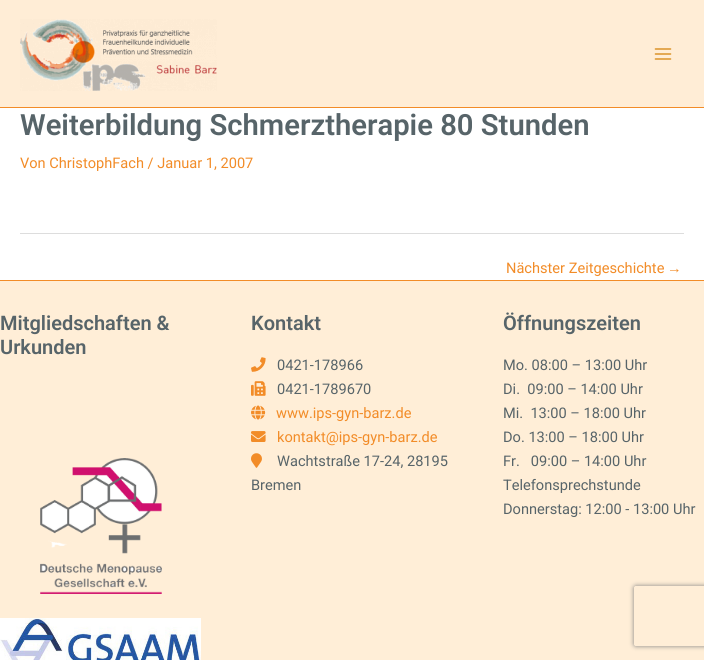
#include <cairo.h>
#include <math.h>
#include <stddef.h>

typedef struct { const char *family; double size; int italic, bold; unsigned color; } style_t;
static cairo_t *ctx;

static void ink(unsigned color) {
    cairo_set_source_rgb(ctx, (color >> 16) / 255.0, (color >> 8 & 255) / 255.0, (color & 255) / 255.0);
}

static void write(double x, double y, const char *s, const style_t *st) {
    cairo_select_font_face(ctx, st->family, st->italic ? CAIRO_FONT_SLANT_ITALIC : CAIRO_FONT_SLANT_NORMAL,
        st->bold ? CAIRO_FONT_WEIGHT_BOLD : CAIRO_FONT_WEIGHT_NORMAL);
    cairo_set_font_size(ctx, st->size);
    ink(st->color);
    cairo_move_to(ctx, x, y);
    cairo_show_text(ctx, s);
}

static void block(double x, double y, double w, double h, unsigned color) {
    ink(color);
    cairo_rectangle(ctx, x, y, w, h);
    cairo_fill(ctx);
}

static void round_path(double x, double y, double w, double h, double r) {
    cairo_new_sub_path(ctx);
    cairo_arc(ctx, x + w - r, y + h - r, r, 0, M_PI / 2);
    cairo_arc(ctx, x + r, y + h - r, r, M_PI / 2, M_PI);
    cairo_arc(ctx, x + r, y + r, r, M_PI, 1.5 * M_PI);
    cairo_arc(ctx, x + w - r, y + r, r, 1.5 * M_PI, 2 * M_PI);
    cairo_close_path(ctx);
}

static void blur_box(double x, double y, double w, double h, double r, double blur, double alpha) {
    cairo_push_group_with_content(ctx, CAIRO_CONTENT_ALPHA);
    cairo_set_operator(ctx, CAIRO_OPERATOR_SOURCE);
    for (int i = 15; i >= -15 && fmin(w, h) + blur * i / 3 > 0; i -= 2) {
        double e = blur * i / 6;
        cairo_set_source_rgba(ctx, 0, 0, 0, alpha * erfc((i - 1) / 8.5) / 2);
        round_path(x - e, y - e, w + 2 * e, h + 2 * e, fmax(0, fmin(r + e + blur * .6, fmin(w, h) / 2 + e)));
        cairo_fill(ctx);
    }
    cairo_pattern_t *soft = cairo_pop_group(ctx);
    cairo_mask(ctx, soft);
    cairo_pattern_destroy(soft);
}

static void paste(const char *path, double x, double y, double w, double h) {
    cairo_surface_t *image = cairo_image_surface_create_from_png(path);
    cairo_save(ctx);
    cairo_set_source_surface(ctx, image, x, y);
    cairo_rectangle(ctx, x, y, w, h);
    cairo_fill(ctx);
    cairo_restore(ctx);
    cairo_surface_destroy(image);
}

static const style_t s1 = {"Roboto SemiBold", 29.2, 0, 0, 0x576469};
static const style_t s2 = {"Roboto", 14.6, 0, 0, 0xf28c28};
static const style_t s3 = {"Liberation Sans", 14.6, 0, 0, 0xf28c28};
static const style_t s4 = {"Roboto SemiBold", 20, 0, 0, 0x576469};
static const style_t s5 = {"Roboto", 14.6, 0, 0, 0x576469};

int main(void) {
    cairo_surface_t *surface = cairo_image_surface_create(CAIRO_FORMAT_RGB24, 704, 660);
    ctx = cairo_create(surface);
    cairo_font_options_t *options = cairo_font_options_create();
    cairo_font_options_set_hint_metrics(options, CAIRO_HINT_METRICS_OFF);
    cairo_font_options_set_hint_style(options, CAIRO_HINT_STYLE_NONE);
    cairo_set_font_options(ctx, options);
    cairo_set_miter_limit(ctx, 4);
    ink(0xffffff);
    cairo_paint(ctx);
    block(0, 0, 704, 107, 0xffedd6);
    block(0, 107, 704, 1, 0xf28c28);
    paste("pic1.png", 20, 19, 197, 72);
    paste("pic2.png", 654, 48, 18, 12);
    write(20, 135, "Weiterbildung Schmerztherapie 80 Stunden", &s1);
    write(20, 168, "Von ChristophFach / Januar 1, 2007", &s2);
    block(20, 233, 664, 1, 0xdddddd);
    write(506, 273, "Nächster Zeitgeschichte", &s2);
    write(667, 273, "→", &s3);
    block(0, 281, 704, 379, 0xffeed7);
    block(0, 280, 704, 1, 0xf28c28);
    write(0, 330, "Mitgliedschaften &", &s4);
    write(0, 354, "Urkunden", &s4);
    paste("pic3.png", 40, 458, 122, 136);
    paste("pic4.png", 0, 618, 201, 42);
    write(251, 330, "Kontakt", &s4);
    paste("pic5.png", 251, 357, 15, 15);
    write(277, 370, "0421-178966", &s5);
    paste("pic6.png", 251, 381, 15, 15);
    write(277, 394, "0421-1789670", &s5);
    paste("pic7.png", 251, 405, 15, 15);
    write(276, 418, "www.ips-gyn-barz.de", &s2);
    paste("pic8.png", 251, 431, 15, 11);
    write(277, 442, "kontakt@ips-gyn-barz.de", &s2);
    paste("pic9.png", 251, 453, 11, 15);
    write(277, 466, "Wachtstraße 17-24, 28195", &s5);
    write(251, 490, "Bremen", &s5);
    write(503, 330, "Öffnungszeiten", &s4);
    write(503, 370, "Mo. 08:00 – 13:00 Uhr", &s5);
    write(503, 394, "Di.  09:00 – 14:00 Uhr", &s5);
    write(503, 418, "Mi.  13:00 – 18:00 Uhr", &s5);
    write(503, 442, "Do. 13:00 – 18:00 Uhr", &s5);
    write(503, 466, "Fr.   09:00 – 14:00 Uhr", &s5);
    write(503, 490, "Telefonsprechstunde", &s5);
    write(503, 514, "Donnerstag: 12:00 - 13:00 Uhr", &s5);
    cairo_save(ctx);
    cairo_set_fill_rule(ctx, CAIRO_FILL_RULE_EVEN_ODD);
    cairo_new_path(ctx);
    cairo_move_to(ctx, 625, 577);
    cairo_line_to(ctx, 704, 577);
    cairo_line_to(ctx, 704, 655);
    cairo_line_to(ctx, 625, 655);
    cairo_close_path(ctx);
    cairo_move_to(ctx, 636, 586);
    cairo_line_to(ctx, 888, 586);
    cairo_curve_to(ctx, 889, 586, 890, 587, 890, 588);
    cairo_line_to(ctx, 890, 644);
    cairo_curve_to(ctx, 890, 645, 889, 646, 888, 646);
    cairo_line_to(ctx, 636, 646);
    cairo_curve_to(ctx, 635, 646, 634, 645, 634, 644);
    cairo_line_to(ctx, 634, 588);
    cairo_curve_to(ctx, 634, 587, 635, 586, 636, 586);
    cairo_close_path(ctx);
    cairo_clip(ctx);
    ink(0x808080);
    blur_box(634, 586, 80, 60, 2, 2.5, 1);
    cairo_restore(ctx);
    cairo_surface_write_to_png(surface, "screenshot.png");
    cairo_font_options_destroy(options);
    cairo_destroy(ctx);
    cairo_surface_destroy(surface);
    return 0;
}
